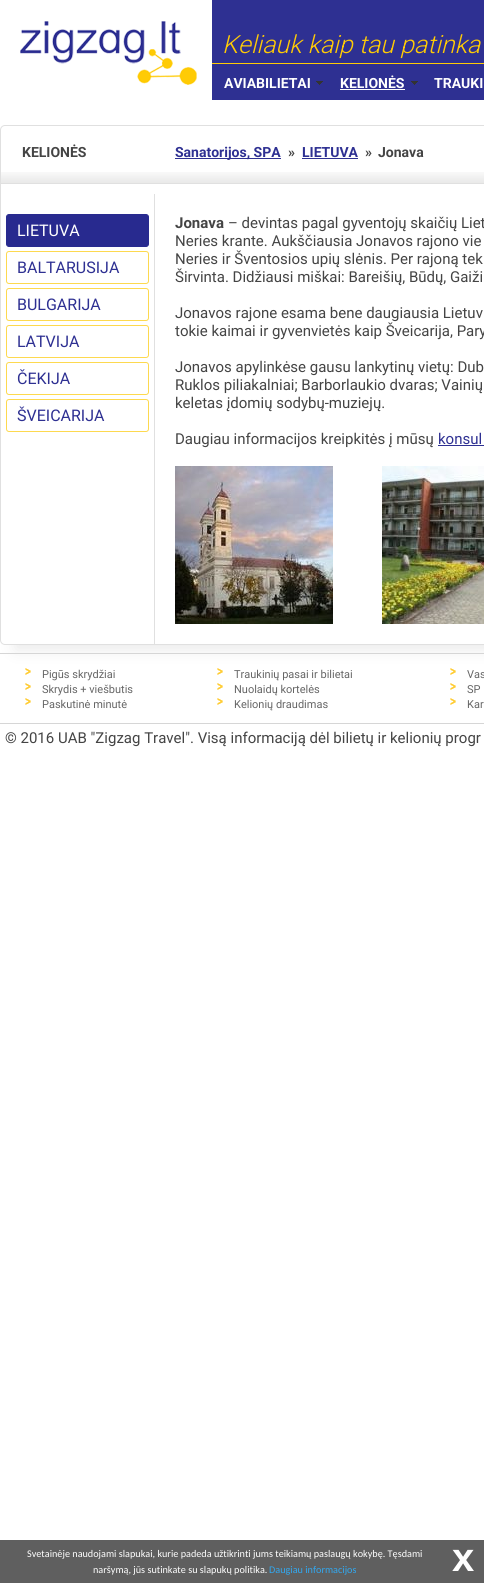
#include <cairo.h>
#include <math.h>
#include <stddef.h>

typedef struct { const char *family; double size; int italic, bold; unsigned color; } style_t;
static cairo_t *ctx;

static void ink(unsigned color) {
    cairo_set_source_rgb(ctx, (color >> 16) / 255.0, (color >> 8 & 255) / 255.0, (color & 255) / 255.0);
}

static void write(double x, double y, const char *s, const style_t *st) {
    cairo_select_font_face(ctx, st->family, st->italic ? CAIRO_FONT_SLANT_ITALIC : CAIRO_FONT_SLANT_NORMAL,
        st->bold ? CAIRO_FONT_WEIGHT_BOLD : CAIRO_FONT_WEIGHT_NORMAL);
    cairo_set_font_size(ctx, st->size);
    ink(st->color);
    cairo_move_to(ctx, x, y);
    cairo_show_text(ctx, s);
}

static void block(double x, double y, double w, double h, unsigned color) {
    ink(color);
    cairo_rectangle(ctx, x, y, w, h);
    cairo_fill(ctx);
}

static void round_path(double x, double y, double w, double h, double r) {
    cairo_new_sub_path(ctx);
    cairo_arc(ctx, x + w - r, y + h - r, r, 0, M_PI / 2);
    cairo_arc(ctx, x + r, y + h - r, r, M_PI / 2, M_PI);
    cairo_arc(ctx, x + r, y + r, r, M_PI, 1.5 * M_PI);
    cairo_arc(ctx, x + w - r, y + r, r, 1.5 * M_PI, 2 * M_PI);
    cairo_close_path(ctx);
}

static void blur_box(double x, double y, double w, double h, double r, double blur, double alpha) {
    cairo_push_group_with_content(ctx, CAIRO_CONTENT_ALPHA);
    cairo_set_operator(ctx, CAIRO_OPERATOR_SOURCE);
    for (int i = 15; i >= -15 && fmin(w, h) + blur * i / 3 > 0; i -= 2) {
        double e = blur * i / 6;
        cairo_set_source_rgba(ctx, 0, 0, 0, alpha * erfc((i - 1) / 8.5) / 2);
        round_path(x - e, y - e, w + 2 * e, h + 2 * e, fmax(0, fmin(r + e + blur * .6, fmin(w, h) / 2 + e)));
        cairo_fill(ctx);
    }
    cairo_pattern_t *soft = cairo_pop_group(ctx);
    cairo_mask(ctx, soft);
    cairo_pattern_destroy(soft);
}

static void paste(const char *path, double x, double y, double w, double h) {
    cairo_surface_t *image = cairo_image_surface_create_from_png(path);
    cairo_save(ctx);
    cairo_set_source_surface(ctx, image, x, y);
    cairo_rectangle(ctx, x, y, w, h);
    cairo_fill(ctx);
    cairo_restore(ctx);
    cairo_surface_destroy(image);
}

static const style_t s1 = {"Roboto Light", 25, 1, 0, 0xffcb05};
static const style_t s2 = {"Roboto", 14, 0, 1, 0xffffff};
static const style_t s3 = {"Roboto", 14, 0, 1, 0x444444};
static const style_t s4 = {"Roboto", 14, 0, 1, 0x2e3092};
static const style_t s5 = {"Roboto", 16, 0, 0, 0xffffff};
static const style_t s6 = {"Roboto", 16, 0, 0, 0x2e3092};
static const style_t s7 = {"Roboto", 15, 0, 1, 0x444444};
static const style_t s8 = {"Roboto", 15, 0, 0, 0x444444};
static const style_t s9 = {"Roboto", 15, 0, 0, 0x2e3092};
static const style_t s10 = {"Roboto", 11, 0, 0, 0x666666};
static const style_t s11 = {"Carlito", 10.2, 0, 0, 0xffffff};
static const style_t s12 = {"Carlito", 10.2, 0, 0, 0x31a8f0};
static const style_t s13 = {"Liberation Sans", 40, 0, 1, 0xffffff};

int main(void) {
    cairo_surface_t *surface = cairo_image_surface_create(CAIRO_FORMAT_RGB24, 484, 1583);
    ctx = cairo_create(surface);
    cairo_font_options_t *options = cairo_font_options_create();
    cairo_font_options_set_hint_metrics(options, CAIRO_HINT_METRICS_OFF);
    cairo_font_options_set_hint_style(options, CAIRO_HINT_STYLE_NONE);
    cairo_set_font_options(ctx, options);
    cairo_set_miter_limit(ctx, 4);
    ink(0xffffff);
    cairo_paint(ctx);
    block(212, 0, 272, 100, 0x2e3092);
    paste("pic1.png", 20, 21, 177, 64);
    block(212, 63, 272, 1, 0xffcb05);
    write(222, 53, "Keliauk kaip tau patinka", &s1);
    paste("pic2.png", 316, 81, 7, 4);
    write(224, 88, "AVIABILIETAI", &s2);
    paste("pic2.png", 411, 81, 7, 4);
    write(340, 88, "KELIONĖS", &s2);
    block(340, 89, 65, 1, 0xffffff);
    write(434, 88, "TRAUKI", &s2);
    cairo_save(ctx);
    cairo_set_fill_rule(ctx, CAIRO_FILL_RULE_EVEN_ODD);
    cairo_new_path(ctx);
    cairo_move_to(ctx, 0, 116);
    cairo_line_to(ctx, 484, 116);
    cairo_line_to(ctx, 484, 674);
    cairo_line_to(ctx, 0, 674);
    cairo_close_path(ctx);
    cairo_move_to(ctx, 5, 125);
    cairo_line_to(ctx, 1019, 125);
    cairo_curve_to(ctx, 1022, 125, 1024, 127, 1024, 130);
    cairo_line_to(ctx, 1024, 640);
    cairo_curve_to(ctx, 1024, 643, 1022, 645, 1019, 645);
    cairo_line_to(ctx, 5, 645);
    cairo_curve_to(ctx, 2, 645, 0, 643, 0, 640);
    cairo_line_to(ctx, 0, 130);
    cairo_curve_to(ctx, 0, 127, 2, 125, 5, 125);
    cairo_close_path(ctx);
    cairo_clip(ctx);
    ink(0xebebeb);
    blur_box(15, 140, 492, 510, 0, 7.5, 1);
    cairo_restore(ctx);
    round_path(0.5, 125.5, 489, 519, 4.5);
    ink(0xe0e0e0);
    cairo_set_line_width(ctx, 1);
    cairo_stroke(ctx);
    paste("pic3.png", 1, 172, 483, 11);
    block(1, 183, 483, 1, 0xe0e0e0);
    write(22, 157, "KELIONĖS", &s3);
    block(175, 158, 106, 1, 0x2e3092);
    write(175, 157, "Sanatorijos, SPA", &s4);
    write(288, 157, "»", &s3);
    write(302, 157, "LIETUVA", &s4);
    block(302, 158, 56, 1, 0x2e3092);
    write(365, 157, "»", &s3);
    write(378, 157, "Jonava", &s3);
    ink(0x282a8f);
    round_path(6.5, 214.5, 142, 32, 2.5);
    cairo_fill_preserve(ctx);
    cairo_stroke(ctx);
    write(17, 236, "LIETUVA", &s5);
    round_path(6.5, 251.5, 142, 32, 2.5);
    ink(0xfdd94f);
    cairo_stroke(ctx);
    write(17, 273, "BALTARUSIJA", &s6);
    round_path(6.5, 288.5, 142, 32, 2.5);
    ink(0xfdd94f);
    cairo_stroke(ctx);
    write(17, 310, "BULGARIJA", &s6);
    round_path(6.5, 325.5, 142, 32, 2.5);
    ink(0xfdd94f);
    cairo_stroke(ctx);
    write(17, 347, "LATVIJA", &s6);
    round_path(6.5, 362.5, 142, 32, 2.5);
    ink(0xfdd94f);
    cairo_stroke(ctx);
    write(17, 384, "ČEKIJA", &s6);
    round_path(6.5, 399.5, 142, 32, 2.5);
    ink(0xfdd94f);
    cairo_stroke(ctx);
    write(17, 421, "ŠVEICARIJA", &s6);
    block(154, 194, 1, 450, 0xe0e0e0);
    write(175, 228, "Jonava", &s7);
    write(228, 228, "– devintas pagal gyventojų skaičių Liet", &s8);
    write(175, 246, "Neries krante. Aukščiausia Jonavos rajono vie", &s8);
    write(175, 264, "Neries ir Šventosios upių slėnis. Per rajoną tek", &s8);
    write(175, 282, "Širvinta. Didžiausi miškai: Bareišių, Būdų, Gaiži", &s8);
    write(175, 318, "Jonavos rajone esama bene daugiausia Lietuv", &s8);
    write(175, 336, "tokie kaimai ir gyvenvietės kaip Šveicarija, Pary", &s8);
    write(175, 372, "Jonavos apylinkėse gausu lankytinų vietų: Dub", &s8);
    write(175, 390, "Ruklos piliakalniai; Barborlaukio dvaras; Vainių", &s8);
    write(175, 408, "keletas įdomių sodybų-muziejų.", &s8);
    write(175, 444, "Daugiau informacijos kreipkitės į mūsų", &s8);
    write(438, 444, "konsul", &s9);
    block(438, 445, 46, 1, 0x2e3092);
    paste("pic4.png", 175, 466, 158, 158);
    paste("pic5.png", 382, 466, 102, 158);
    block(0, 653, 484, 1, 0xd6d6d6);
    block(0, 723, 484, 1, 0xd6d6d6);
    paste("pic6.png", 25, 668, 6, 7);
    write(42, 678, "Pigūs skrydžiai", &s10);
    paste("pic6.png", 25, 683, 6, 7);
    write(42, 693, "Skrydis + viešbutis", &s10);
    paste("pic6.png", 25, 698, 6, 7);
    write(42, 708, "Paskutinė minutė", &s10);
    paste("pic6.png", 217, 668, 6, 7);
    write(234, 678, "Traukinių pasai ir bilietai", &s10);
    paste("pic6.png", 217, 683, 6, 7);
    write(234, 693, "Nuolaidų kortelės", &s10);
    paste("pic6.png", 217, 698, 6, 7);
    write(234, 708, "Kelionių draudimas", &s10);
    paste("pic6.png", 450, 668, 6, 7);
    write(467, 678, "Vas", &s10);
    paste("pic6.png", 450, 683, 6, 7);
    write(467, 693, "SP", &s10);
    paste("pic6.png", 450, 698, 6, 7);
    write(467, 708, "Kar", &s10);
    write(5, 743, "© 2016 UAB \"Zigzag Travel\". Visą informaciją dėl bilietų ir kelionių progr", &s8);
    block(0, 1540, 484, 43, 0x5f5f5f);
    write(27, 1557, "Svetainėje naudojami slapukai, kurie padeda užtikrinti jums teikiamų paslaugų kokybę. Tęsdami", &s11);
    write(93, 1573, "naršymą, jūs sutinkate su slapukų politika.", &s11);
    write(269, 1573, "Daugiau informacijos", &s12);
    write(452, 1571, "x", &s13);
    cairo_surface_write_to_png(surface, "screenshot.png");
    cairo_font_options_destroy(options);
    cairo_destroy(ctx);
    cairo_surface_destroy(surface);
    return 0;
}
